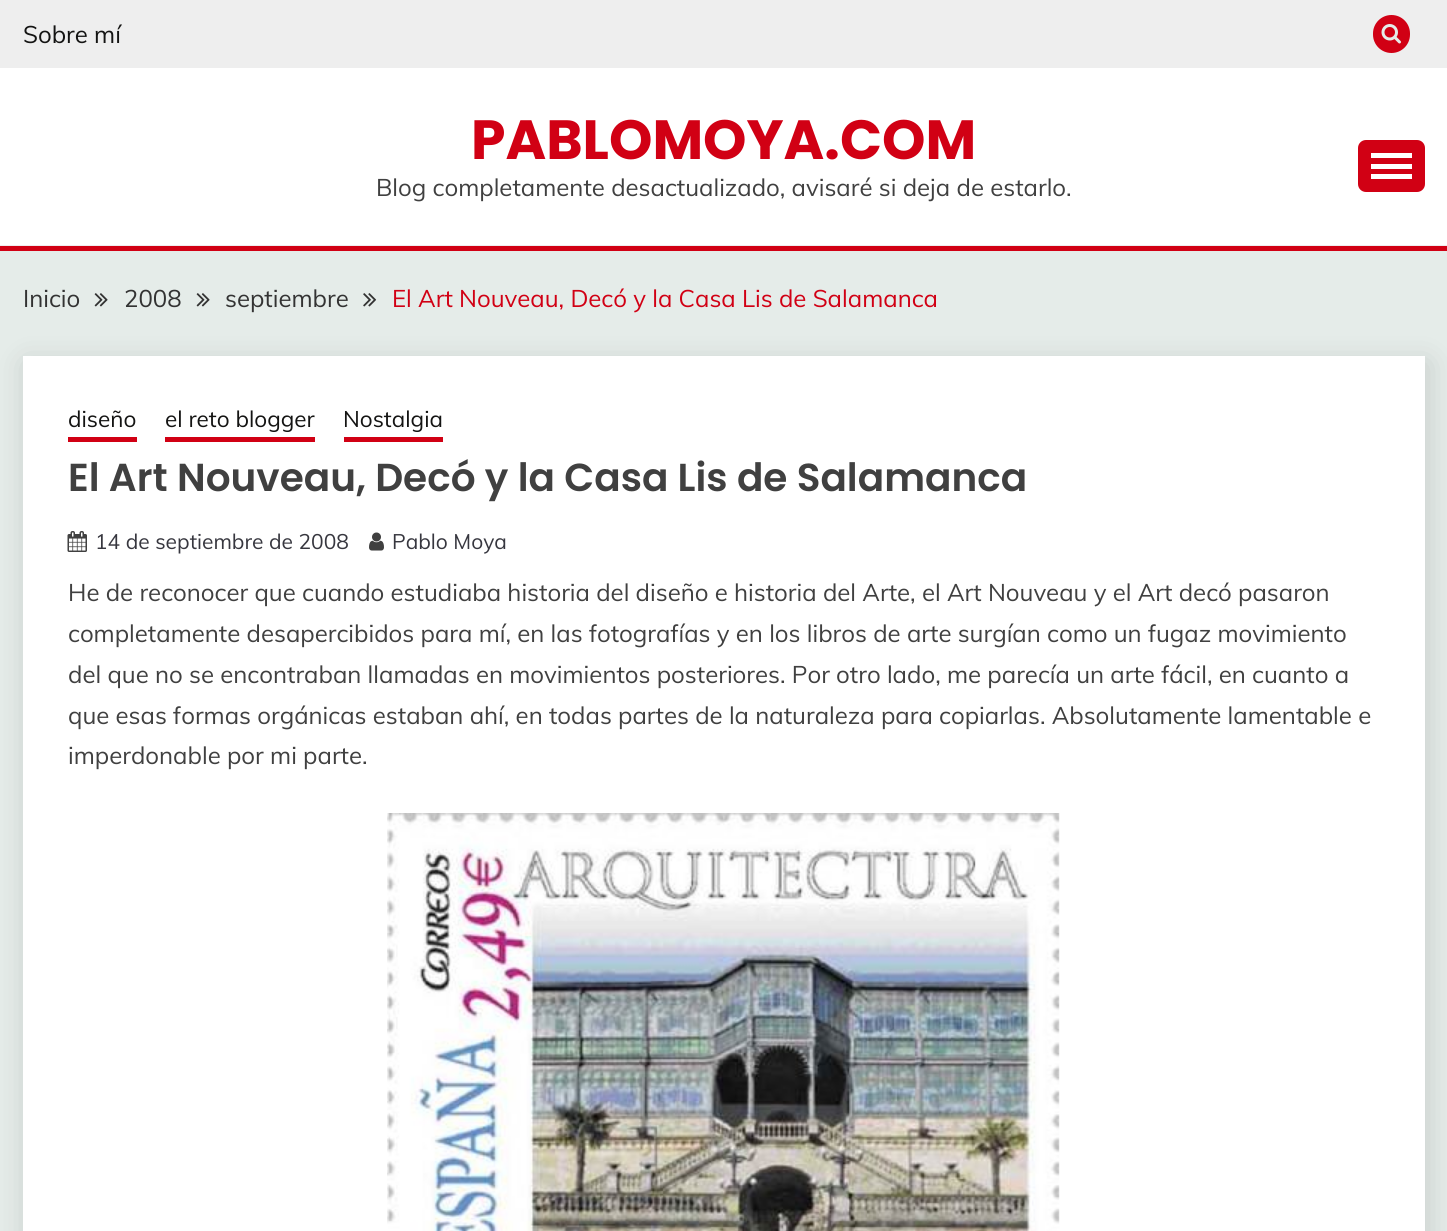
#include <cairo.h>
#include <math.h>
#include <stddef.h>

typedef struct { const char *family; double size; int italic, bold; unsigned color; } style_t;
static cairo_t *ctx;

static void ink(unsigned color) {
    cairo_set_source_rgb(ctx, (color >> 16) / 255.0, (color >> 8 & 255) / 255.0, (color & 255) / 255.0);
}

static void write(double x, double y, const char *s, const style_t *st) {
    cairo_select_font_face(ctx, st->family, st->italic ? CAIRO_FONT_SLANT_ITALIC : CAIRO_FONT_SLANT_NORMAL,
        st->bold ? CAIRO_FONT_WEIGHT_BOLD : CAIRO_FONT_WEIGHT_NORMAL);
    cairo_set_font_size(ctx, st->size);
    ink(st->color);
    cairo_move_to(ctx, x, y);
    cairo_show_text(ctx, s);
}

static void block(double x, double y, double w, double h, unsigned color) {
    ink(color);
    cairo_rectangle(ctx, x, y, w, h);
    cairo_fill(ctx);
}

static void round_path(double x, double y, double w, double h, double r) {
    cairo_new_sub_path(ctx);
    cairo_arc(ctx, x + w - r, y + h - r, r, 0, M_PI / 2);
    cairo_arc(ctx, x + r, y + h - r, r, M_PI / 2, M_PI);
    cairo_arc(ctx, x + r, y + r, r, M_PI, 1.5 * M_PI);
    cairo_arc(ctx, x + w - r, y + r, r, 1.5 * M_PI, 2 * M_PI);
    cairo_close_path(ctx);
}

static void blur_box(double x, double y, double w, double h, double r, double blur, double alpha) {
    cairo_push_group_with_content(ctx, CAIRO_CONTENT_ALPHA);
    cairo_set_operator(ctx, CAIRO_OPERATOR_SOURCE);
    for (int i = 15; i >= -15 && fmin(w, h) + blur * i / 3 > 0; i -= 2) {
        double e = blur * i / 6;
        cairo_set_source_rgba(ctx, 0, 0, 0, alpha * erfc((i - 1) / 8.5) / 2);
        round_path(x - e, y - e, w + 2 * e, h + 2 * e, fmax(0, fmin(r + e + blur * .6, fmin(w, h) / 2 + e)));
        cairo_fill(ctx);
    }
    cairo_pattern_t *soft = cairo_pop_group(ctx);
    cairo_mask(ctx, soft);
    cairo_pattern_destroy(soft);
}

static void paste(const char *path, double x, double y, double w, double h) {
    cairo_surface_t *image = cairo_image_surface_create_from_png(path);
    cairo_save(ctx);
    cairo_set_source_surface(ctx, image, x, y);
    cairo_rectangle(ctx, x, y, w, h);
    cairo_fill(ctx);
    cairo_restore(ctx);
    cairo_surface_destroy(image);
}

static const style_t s1 = {"Muli", 24, 0, 0, 0x141413};
static const style_t s2 = {"Poppins", 55.25, 0, 1, 0xd10014};
static const style_t s3 = {"Muli", 24, 0, 0, 0x404040};
static const style_t s4 = {"Muli", 24, 0, 0, 0x333333};
static const style_t s5 = {"Muli", 24, 0, 0, 0xd10014};
static const style_t s6 = {"Muli", 22.5, 0, 0, 0x141413};
static const style_t s7 = {"Poppins SemiBold", 39, 0, 0, 0x404040};
static const style_t s8 = {"Muli", 21, 0, 0, 0x37373f};

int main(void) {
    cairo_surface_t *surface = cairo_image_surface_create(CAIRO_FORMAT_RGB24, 1447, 1231);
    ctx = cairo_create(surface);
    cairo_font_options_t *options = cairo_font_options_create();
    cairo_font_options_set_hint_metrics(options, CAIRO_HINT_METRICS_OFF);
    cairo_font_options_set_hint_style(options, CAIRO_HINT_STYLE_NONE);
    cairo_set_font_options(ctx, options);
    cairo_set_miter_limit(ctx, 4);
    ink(0xe5ece9);
    cairo_paint(ctx);
    block(0, 68, 1447, 177, 0xffffff);
    block(0, 0, 1447, 68, 0xeeeeee);
    write(23, 43, "Sobre mí", &s1);
    ink(0xd10014);
    round_path(1373, 15, 37, 38, 18.5);
    cairo_fill(ctx);
    paste("pic1.png", 1381, 24, 20, 20);
    block(0, 245, 1447, 1, 0xeeeeee);
    write(471, 159, "PABLOMOYA.COM", &s2);
    write(376, 196, "Blog completamente desactualizado, avisaré si deja de estarlo.", &s3);
    ink(0xd10014);
    round_path(1358, 140, 67, 52, 8);
    cairo_fill(ctx);
    block(1371, 153, 41, 5, 0xffffff);
    block(1371, 164, 41, 5, 0xffffff);
    block(1371, 174, 41, 5, 0xffffff);
    block(0, 246, 1447, 5, 0xd10014);
    write(23, 307, "Inicio", &s4);
    paste("pic2.png", 94, 293, 14, 14);
    write(124, 307, "2008", &s4);
    paste("pic2.png", 196, 293, 14, 14);
    write(225, 307, "septiembre", &s4);
    paste("pic3.png", 363, 293, 14, 14);
    write(392, 307, "El Art Nouveau, Decó y la Casa Lis de Salamanca", &s5);
    ink(0x000000);
    blur_box(26, 363, 1402, 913, 0, 15, 0.14);
    block(23, 356, 1402, 875, 0xffffff);
    write(68, 427, "diseño", &s6);
    block(68, 437, 69, 5, 0xd10014);
    write(165, 427, "el reto blogger", &s6);
    block(165, 437, 150, 5, 0xd10014);
    write(343, 427, "Nostalgia", &s6);
    block(344, 437, 99, 5, 0xd10014);
    write(68, 491, "El Art Nouveau, Decó y la Casa Lis de Salamanca", &s7);
    paste("pic4.png", 67, 531, 20, 21);
    write(95, 549, "14 de septiembre de 2008", &s8);
    paste("pic5.png", 369, 532, 15, 19);
    write(392, 549, "Pablo Moya", &s8);
    write(68, 601, "He de reconocer que cuando estudiaba historia del diseño e historia del Arte, el Art Nouveau y el Art decó pasaron", &s3);
    write(68, 642, "completamente desapercibidos para mí, en las fotografías y en los libros de arte surgían como un fugaz movimiento", &s3);
    write(68, 683, "del que no se encontraban llamadas en movimientos posteriores. Por otro lado, me parecía un arte fácil, en cuanto a", &s3);
    write(68, 724, "que esas formas orgánicas estaban ahí, en todas partes de la naturaleza para copiarlas. Absolutamente lamentable e", &s3);
    write(68, 764, "imperdonable por mi parte.", &s3);
    paste("pic6.png", 387, 813, 673, 418);
    cairo_surface_write_to_png(surface, "screenshot.png");
    cairo_font_options_destroy(options);
    cairo_destroy(ctx);
    cairo_surface_destroy(surface);
    return 0;
}
